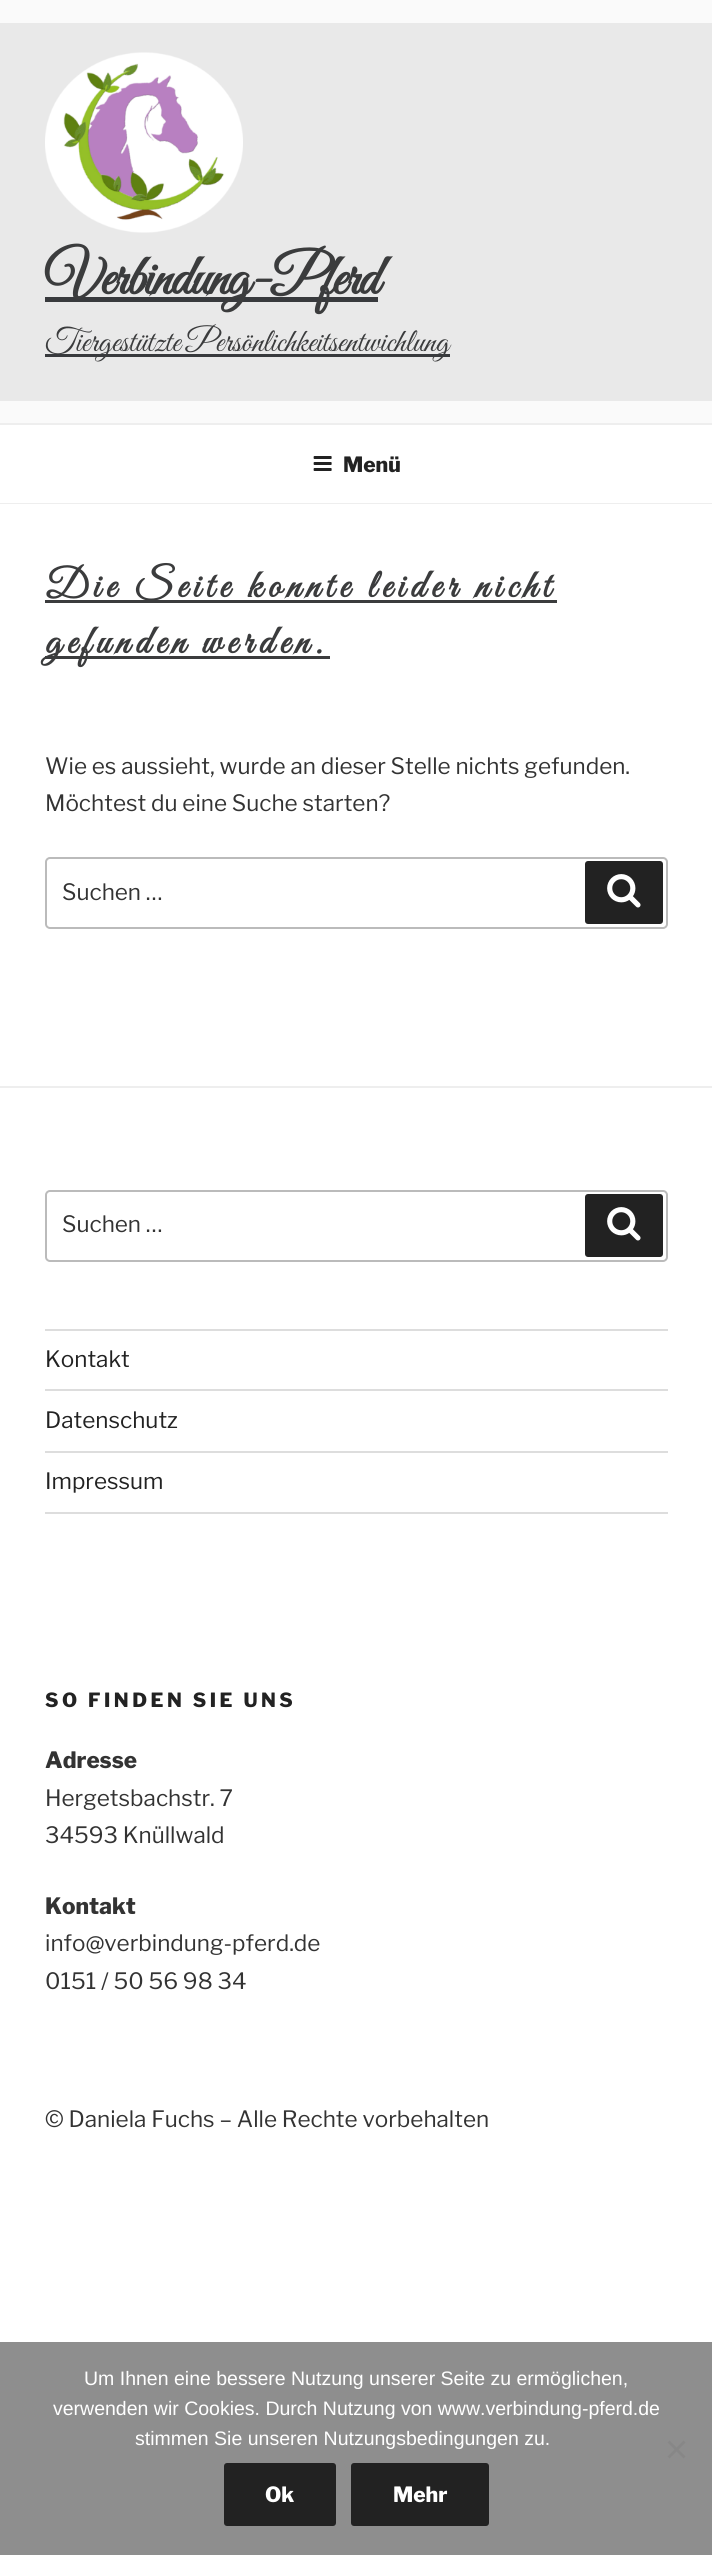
#include <cairo.h>
#include <math.h>
#include <stddef.h>

typedef struct { const char *family; double size; int italic, bold; unsigned color; } style_t;
static cairo_t *ctx;

static void ink(unsigned color) {
    cairo_set_source_rgb(ctx, (color >> 16) / 255.0, (color >> 8 & 255) / 255.0, (color & 255) / 255.0);
}

static void write(double x, double y, const char *s, const style_t *st) {
    cairo_select_font_face(ctx, st->family, st->italic ? CAIRO_FONT_SLANT_ITALIC : CAIRO_FONT_SLANT_NORMAL,
        st->bold ? CAIRO_FONT_WEIGHT_BOLD : CAIRO_FONT_WEIGHT_NORMAL);
    cairo_set_font_size(ctx, st->size);
    ink(st->color);
    cairo_move_to(ctx, x, y);
    cairo_show_text(ctx, s);
}

static void write_spaced(double x, double y, const char *s, double letter, double word) {
    cairo_move_to(ctx, x, y);
    while (*s) {
        char ch[5] = {0};
        int n = 0;
        do ch[n++] = *s++; while ((*s & 0xC0) == 0x80);
        cairo_show_text(ctx, ch);
        cairo_rel_move_to(ctx, letter + word * (*ch == ' '), 0);
    }
}

static void block(double x, double y, double w, double h, unsigned color) {
    ink(color);
    cairo_rectangle(ctx, x, y, w, h);
    cairo_fill(ctx);
}

static void round_path(double x, double y, double w, double h, double r) {
    cairo_new_sub_path(ctx);
    cairo_arc(ctx, x + w - r, y + h - r, r, 0, M_PI / 2);
    cairo_arc(ctx, x + r, y + h - r, r, M_PI / 2, M_PI);
    cairo_arc(ctx, x + r, y + r, r, M_PI, 1.5 * M_PI);
    cairo_arc(ctx, x + w - r, y + r, r, 1.5 * M_PI, 2 * M_PI);
    cairo_close_path(ctx);
}

static void paste(const char *path, double x, double y, double w, double h) {
    cairo_surface_t *image = cairo_image_surface_create_from_png(path);
    cairo_save(ctx);
    cairo_set_source_surface(ctx, image, x, y);
    cairo_rectangle(ctx, x, y, w, h);
    cairo_fill(ctx);
    cairo_restore(ctx);
    cairo_surface_destroy(image);
}

static const style_t s1 = {"Libre Franklin Thin", 21, 0, 0, 0x222222};
static const style_t s2 = {"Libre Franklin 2 Thin", 22.5, 0, 0, 0x333333};
static const style_t s3 = {"Libre Franklin 2 Thin", 22.5, 0, 0, 0x222222};
static const style_t s4 = {"Libre Franklin Thin", 22.5, 0, 0, 0x333333};
static const style_t s5 = {"Liberation Sans", 19.5, 0, 0, 0xffffff};
static const style_t s6 = {"Libre Franklin Thin", 21, 0, 0, 0xffffff};

int main(void) {
    cairo_surface_t *surface = cairo_image_surface_create(CAIRO_FORMAT_RGB24, 712, 2555);
    ctx = cairo_create(surface);
    cairo_font_options_t *options = cairo_font_options_create();
    cairo_font_options_set_hint_metrics(options, CAIRO_HINT_METRICS_OFF);
    cairo_font_options_set_hint_style(options, CAIRO_HINT_STYLE_NONE);
    cairo_set_font_options(ctx, options);
    cairo_set_miter_limit(ctx, 4);
    ink(0xffffff);
    cairo_paint(ctx);
    block(0, 0, 712, 423, 0xfafafa);
    block(0, 23, 712, 378, 0xe9e9e9);
    paste("pic1.png", 45, 52, 198, 181);
    block(45, 297, 333, 5, 0x383a3d);
    cairo_select_font_face(ctx, "Great Vibes", CAIRO_FONT_SLANT_NORMAL, CAIRO_FONT_WEIGHT_BOLD);
    cairo_set_font_size(ctx, 57.5);
    ink(0x3b3c3d);
    write_spaced(45, 294, "Verbindung-Pferd", -1.5, 0);
    block(45, 354, 405, 3, 0x383a3d);
    cairo_select_font_face(ctx, "Great Vibes", CAIRO_FONT_SLANT_NORMAL, CAIRO_FONT_WEIGHT_NORMAL);
    cairo_set_font_size(ctx, 33);
    ink(0x3b3c3d);
    write_spaced(45, 351, "Tiergestützte Persönlichkeitsentwichlung", 0, -1);
    block(0, 423, 712, 2, 0xeeeeee);
    block(0, 503, 712, 1, 0xeeeeee);
    paste("pic2.png", 313, 456, 19, 15);
    write(343, 472, "Menü", &s1);
    block(45, 600, 512, 3, 0x3b3c3d);
    cairo_select_font_face(ctx, "Great Vibes", CAIRO_FONT_SLANT_NORMAL, CAIRO_FONT_WEIGHT_BOLD);
    cairo_set_font_size(ctx, 40.25);
    write_spaced(45, 597, "Die Seite konnte leider nicht", 5.6, 0);
    block(45, 656, 285, 3, 0x3b3c3d);
    write_spaced(45, 653, "gefunden werden.", 5.6, -2);
    write(45, 774, "Wie es aussieht, wurde an dieser Stelle nichts gefunden.", &s2);
    write(45, 811, "Möchtest du eine Suche starten?", &s2);
    round_path(46, 858, 621, 70, 4);
    ink(0xbbbbbb);
    cairo_stroke(ctx);
    write(62, 900, "Suchen …", &s2);
    ink(0x222222);
    round_path(585, 861, 78, 63, 3);
    cairo_fill(ctx);
    paste("pic3.png", 607, 874, 34, 34);
    block(0, 1086, 712, 2, 0xeeeeee);
    round_path(46, 1191, 621, 70, 4);
    ink(0xbbbbbb);
    cairo_stroke(ctx);
    write(62, 1232, "Suchen …", &s2);
    ink(0x222222);
    round_path(585, 1194, 78, 63, 3);
    cairo_fill(ctx);
    paste("pic3.png", 607, 1207, 34, 34);
    block(45, 1329, 623, 2, 0xdddddd);
    block(45, 1389, 623, 2, 0xdddddd);
    write(45, 1367, "Kontakt", &s3);
    block(45, 1451, 623, 2, 0xdddddd);
    write(45, 1428, "Datenschutz", &s3);
    block(45, 1512, 623, 2, 0xdddddd);
    write(45, 1489, "Impressum", &s3);
    cairo_select_font_face(ctx, "Libre Franklin Thin", CAIRO_FONT_SLANT_NORMAL, CAIRO_FONT_WEIGHT_NORMAL);
    cairo_set_font_size(ctx, 19.5);
    write_spaced(45, 1707, "SO FINDEN SIE UNS", 3.5, 0);
    write(45, 1768, "Adresse", &s4);
    write(45, 1806, "Hergetsbachstr. 7", &s2);
    write(45, 1843, "34593 Knüllwald", &s2);
    write(45, 1914, "Kontakt", &s4);
    write(45, 1951, "info@verbindung-pferd.de", &s2);
    write(45, 1989, "0151 / 50 56 98 34", &s2);
    write(45, 2127, "© Daniela Fuchs – Alle Rechte vorbehalten", &s2);
    block(0, 2342, 712, 213, 0x8e8e8e);
    write(84, 2385, "Um Ihnen eine bessere Nutzung unserer Seite zu ermöglichen,", &s5);
    write(53, 2415, "verwenden wir Cookies. Durch Nutzung von www.verbindung-pferd.de", &s5);
    write(135, 2445, "stimmen Sie unseren Nutzungsbedingungen zu.", &s5);
    ink(0x878787);
    cairo_new_path(ctx);
    cairo_move_to(ctx, 683.5, 2440.5);
    cairo_line_to(ctx, 685.5, 2442.5);
    cairo_line_to(ctx, 669.5, 2458.5);
    cairo_line_to(ctx, 667.5, 2456.5);
    cairo_close_path(ctx);
    cairo_fill(ctx);
    cairo_new_path(ctx);
    cairo_move_to(ctx, 667.5, 2442.5);
    cairo_line_to(ctx, 669.5, 2440.5);
    cairo_line_to(ctx, 685.5, 2456.5);
    cairo_line_to(ctx, 683.5, 2458.5);
    cairo_close_path(ctx);
    cairo_fill(ctx);
    ink(0x222222);
    round_path(224, 2463, 112, 63, 3);
    cairo_fill(ctx);
    write(265, 2502, "Ok", &s6);
    ink(0x222222);
    round_path(351, 2463, 138, 63, 3);
    cairo_fill(ctx);
    write(393, 2502, "Mehr", &s6);
    cairo_surface_write_to_png(surface, "screenshot.png");
    cairo_font_options_destroy(options);
    cairo_destroy(ctx);
    cairo_surface_destroy(surface);
    return 0;
}
